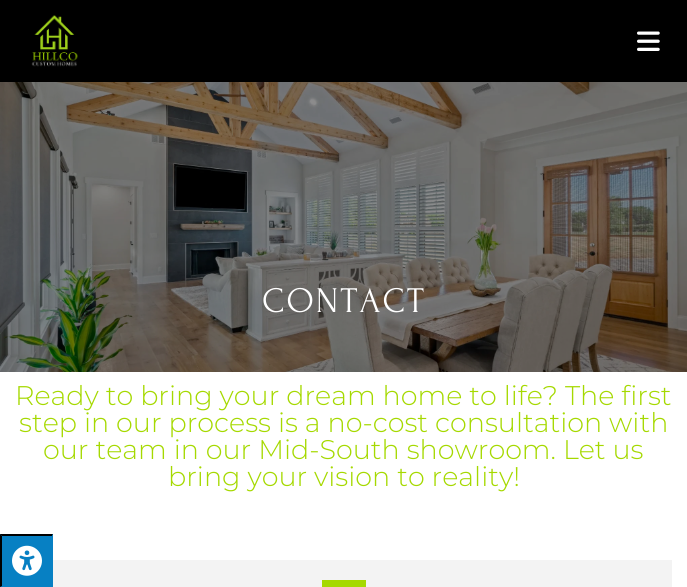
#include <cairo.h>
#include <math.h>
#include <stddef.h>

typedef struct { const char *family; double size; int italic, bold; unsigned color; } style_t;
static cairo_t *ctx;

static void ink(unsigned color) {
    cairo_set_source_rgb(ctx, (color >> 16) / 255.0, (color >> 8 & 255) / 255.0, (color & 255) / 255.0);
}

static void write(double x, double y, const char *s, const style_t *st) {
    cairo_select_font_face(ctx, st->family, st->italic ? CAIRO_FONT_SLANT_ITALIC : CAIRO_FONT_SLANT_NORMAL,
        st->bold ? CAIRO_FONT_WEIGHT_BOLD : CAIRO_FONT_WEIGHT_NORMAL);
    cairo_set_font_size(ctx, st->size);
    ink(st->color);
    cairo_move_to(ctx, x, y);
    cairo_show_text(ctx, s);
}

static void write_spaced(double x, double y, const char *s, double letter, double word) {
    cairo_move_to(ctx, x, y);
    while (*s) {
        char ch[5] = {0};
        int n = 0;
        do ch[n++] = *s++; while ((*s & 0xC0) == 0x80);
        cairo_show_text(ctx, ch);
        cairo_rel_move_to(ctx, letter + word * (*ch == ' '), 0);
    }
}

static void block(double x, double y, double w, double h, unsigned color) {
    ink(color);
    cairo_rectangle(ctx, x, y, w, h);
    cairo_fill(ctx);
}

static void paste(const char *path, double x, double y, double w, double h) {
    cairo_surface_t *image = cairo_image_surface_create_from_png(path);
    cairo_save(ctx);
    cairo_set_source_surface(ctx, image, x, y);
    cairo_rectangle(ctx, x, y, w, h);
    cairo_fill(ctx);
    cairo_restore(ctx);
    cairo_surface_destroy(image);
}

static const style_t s1 = {"Montserrat Light", 27, 0, 0, 0xa5d900};

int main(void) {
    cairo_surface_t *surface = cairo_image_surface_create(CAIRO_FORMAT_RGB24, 687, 587);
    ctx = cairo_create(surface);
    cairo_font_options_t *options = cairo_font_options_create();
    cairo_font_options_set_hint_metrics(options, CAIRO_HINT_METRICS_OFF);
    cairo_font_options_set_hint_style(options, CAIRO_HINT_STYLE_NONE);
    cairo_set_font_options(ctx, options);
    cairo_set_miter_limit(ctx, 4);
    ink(0xffffff);
    cairo_paint(ctx);
    block(0, 0, 687, 82, 0x000000);
    paste("pic1.png", 31, 15, 47, 52);
    paste("pic2.png", 637, 31, 23, 20);
    paste("pic3.png", 0, 82, 687, 290);
    cairo_select_font_face(ctx, "Forum", CAIRO_FONT_SLANT_NORMAL, CAIRO_FONT_WEIGHT_NORMAL);
    cairo_set_font_size(ctx, 36);
    ink(0xffffff);
    write_spaced(262, 312, "CONTACT", 2, 0);
    write(15, 405, "Ready to bring your dream home to life? The first", &s1);
    write(19, 432, "step in our process is a no-cost consultation with", &s1);
    write(43, 459, "our team in our Mid-South showroom. Let us", &s1);
    write(168, 486, "bring your vision to reality!", &s1);
    block(53, 560, 619, 27, 0xf3f3f3);
    block(322, 580, 44, 7, 0xa5d900);
    block(0, 534, 53, 53, 0x0780c3);
    ink(0x000000);
    cairo_new_path(ctx);
    cairo_move_to(ctx, 0, 534);
    cairo_line_to(ctx, 53, 534);
    cairo_line_to(ctx, 52, 536);
    cairo_line_to(ctx, 2, 536);
    cairo_close_path(ctx);
    cairo_fill(ctx);
    ink(0x0780c3);
    cairo_new_path(ctx);
    cairo_move_to(ctx, 53, 534);
    cairo_line_to(ctx, 53, 587);
    cairo_line_to(ctx, 52, 586);
    cairo_line_to(ctx, 52, 536);
    cairo_close_path(ctx);
    cairo_fill(ctx);
    ink(0x000000);
    cairo_new_path(ctx);
    cairo_move_to(ctx, 0, 587);
    cairo_line_to(ctx, 0, 534);
    cairo_line_to(ctx, 2, 536);
    cairo_line_to(ctx, 2, 586);
    cairo_close_path(ctx);
    cairo_fill(ctx);
    paste("pic4.png", 12, 545, 30, 31);
    cairo_surface_write_to_png(surface, "screenshot.png");
    cairo_font_options_destroy(options);
    cairo_destroy(ctx);
    cairo_surface_destroy(surface);
    return 0;
}
